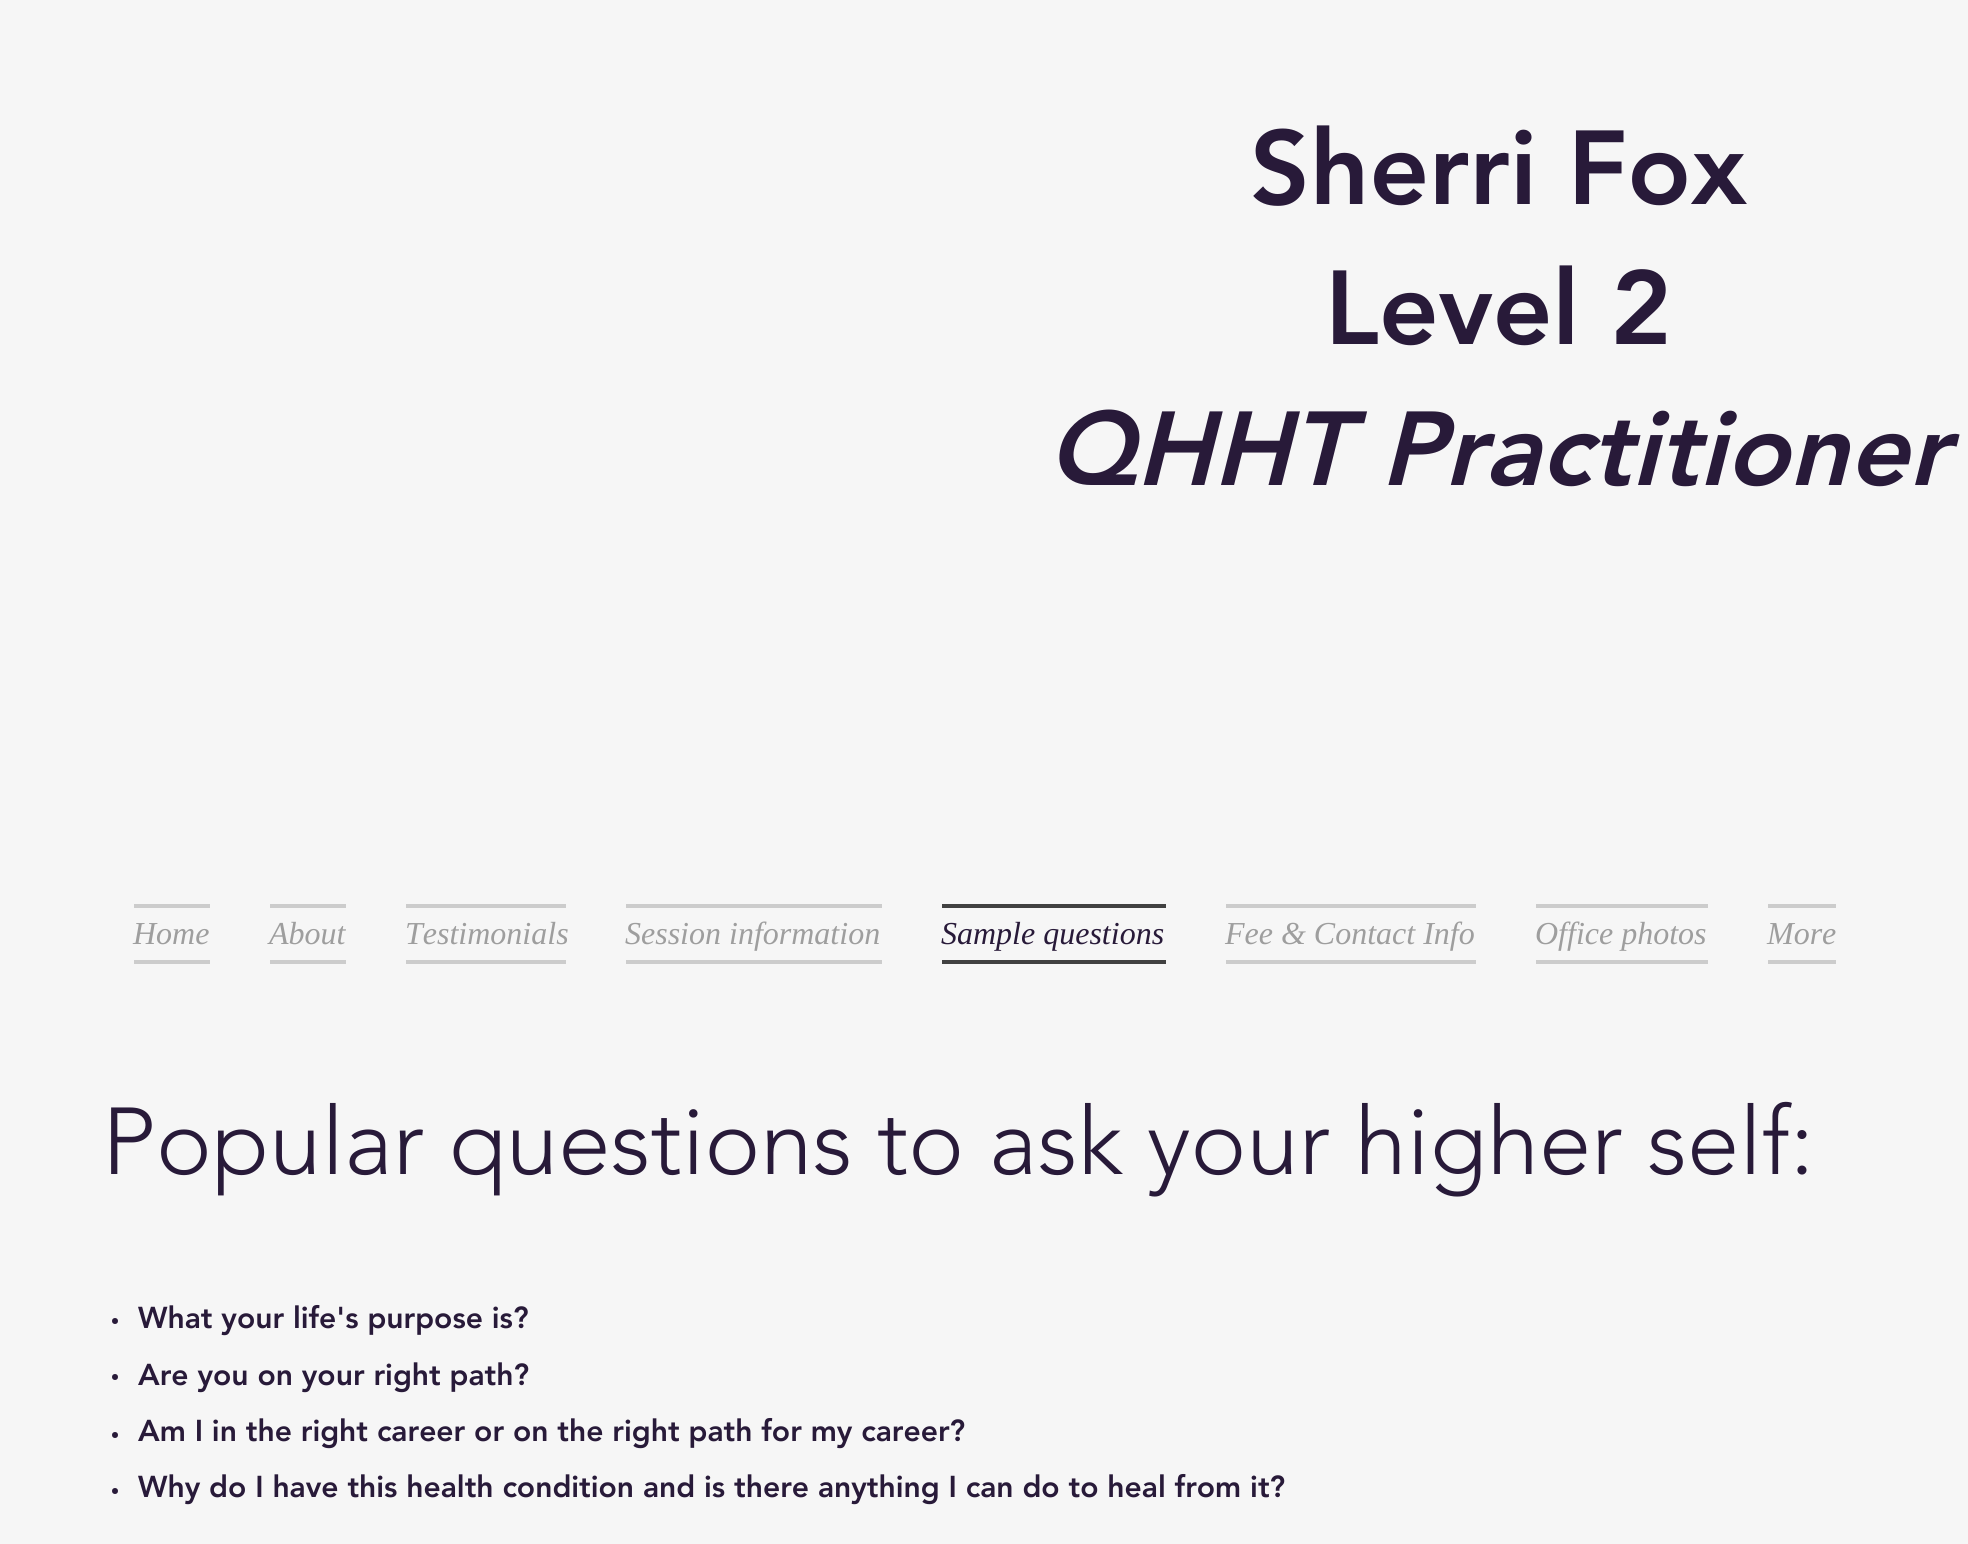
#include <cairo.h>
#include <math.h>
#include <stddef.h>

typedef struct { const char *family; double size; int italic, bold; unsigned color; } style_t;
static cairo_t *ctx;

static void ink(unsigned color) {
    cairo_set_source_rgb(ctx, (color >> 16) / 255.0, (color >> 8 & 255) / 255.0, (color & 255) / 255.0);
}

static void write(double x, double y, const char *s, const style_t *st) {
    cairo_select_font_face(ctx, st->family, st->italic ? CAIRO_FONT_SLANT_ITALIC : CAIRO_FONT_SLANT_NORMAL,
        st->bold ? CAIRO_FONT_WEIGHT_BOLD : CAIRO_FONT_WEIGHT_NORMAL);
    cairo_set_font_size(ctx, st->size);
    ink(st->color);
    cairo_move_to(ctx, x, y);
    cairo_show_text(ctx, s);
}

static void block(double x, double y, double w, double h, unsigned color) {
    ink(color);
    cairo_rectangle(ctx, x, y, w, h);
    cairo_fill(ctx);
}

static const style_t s1 = {"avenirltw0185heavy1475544 Black", 104, 0, 0, 0x281a39};
static const style_t s2 = {"avenirltw0185heavy1475544 Black", 104, 1, 0, 0x281a39};
static const style_t s3 = {"Liberation Serif", 32, 1, 0, 0x9e9e9e};
static const style_t s4 = {"Liberation Serif", 32, 1, 0, 0x281a39};
static const style_t s5 = {"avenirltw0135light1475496 Light", 94, 0, 0, 0x281a39};
static const style_t s6 = {"avenirltw0185heavy1475544 Black", 30, 0, 0, 0x281a39};

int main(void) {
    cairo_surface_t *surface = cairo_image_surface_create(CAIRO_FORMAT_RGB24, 1968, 1544);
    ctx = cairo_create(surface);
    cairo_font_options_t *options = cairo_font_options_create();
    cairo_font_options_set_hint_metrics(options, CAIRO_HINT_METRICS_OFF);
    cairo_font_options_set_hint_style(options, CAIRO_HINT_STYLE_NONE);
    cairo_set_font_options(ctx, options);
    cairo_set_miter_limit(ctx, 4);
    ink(0xf6f6f6);
    cairo_paint(ctx);
    write(1250, 204, "Sherri Fox", &s1);
    write(1325, 344, "Level 2", &s1);
    write(1047, 485, "QHHT Practitioner", &s2);
    block(134, 904, 76, 4, 0xcccccc);
    block(134, 960, 76, 4, 0xcccccc);
    write(133, 944, "Home", &s3);
    block(270, 904, 76, 4, 0xcccccc);
    block(270, 960, 76, 4, 0xcccccc);
    write(269, 944, "About", &s3);
    block(406, 904, 160, 4, 0xcccccc);
    block(406, 960, 160, 4, 0xcccccc);
    write(405, 944, "Testimonials", &s3);
    block(626, 904, 256, 4, 0xcccccc);
    block(626, 960, 256, 4, 0xcccccc);
    write(625, 944, "Session information", &s3);
    block(942, 904, 224, 4, 0x414141);
    block(942, 960, 224, 4, 0x414141);
    write(941, 944, "Sample questions", &s4);
    block(1226, 904, 250, 4, 0xcccccc);
    block(1226, 960, 250, 4, 0xcccccc);
    write(1225, 944, "Fee & Contact Info", &s3);
    block(1536, 904, 172, 4, 0xcccccc);
    block(1536, 960, 172, 4, 0xcccccc);
    write(1535, 944, "Office photos", &s3);
    block(1768, 904, 68, 4, 0xcccccc);
    block(1768, 960, 68, 4, 0xcccccc);
    write(1767, 944, "More", &s3);
    write(102, 1174, "Popular questions to ask your higher self:", &s5);
    cairo_new_path(ctx);
    cairo_arc(ctx, 115, 1321, 3, 0, 2 * M_PI);
    cairo_fill(ctx);
    write(138, 1328, "What your life's purpose is?", &s6);
    cairo_new_path(ctx);
    cairo_arc(ctx, 115, 1377, 3, 0, 2 * M_PI);
    cairo_fill(ctx);
    write(138, 1385, "Are you on your right path?", &s6);
    cairo_new_path(ctx);
    cairo_arc(ctx, 115, 1435, 3, 0, 2 * M_PI);
    cairo_fill(ctx);
    write(138, 1441, "Am I in the right career or on the right path for my career?", &s6);
    cairo_new_path(ctx);
    cairo_arc(ctx, 115, 1491, 3, 0, 2 * M_PI);
    cairo_fill(ctx);
    write(138, 1497, "Why do I have this health condition and is there anything I can do to heal from it?", &s6);
    cairo_surface_write_to_png(surface, "screenshot.png");
    cairo_font_options_destroy(options);
    cairo_destroy(ctx);
    cairo_surface_destroy(surface);
    return 0;
}
